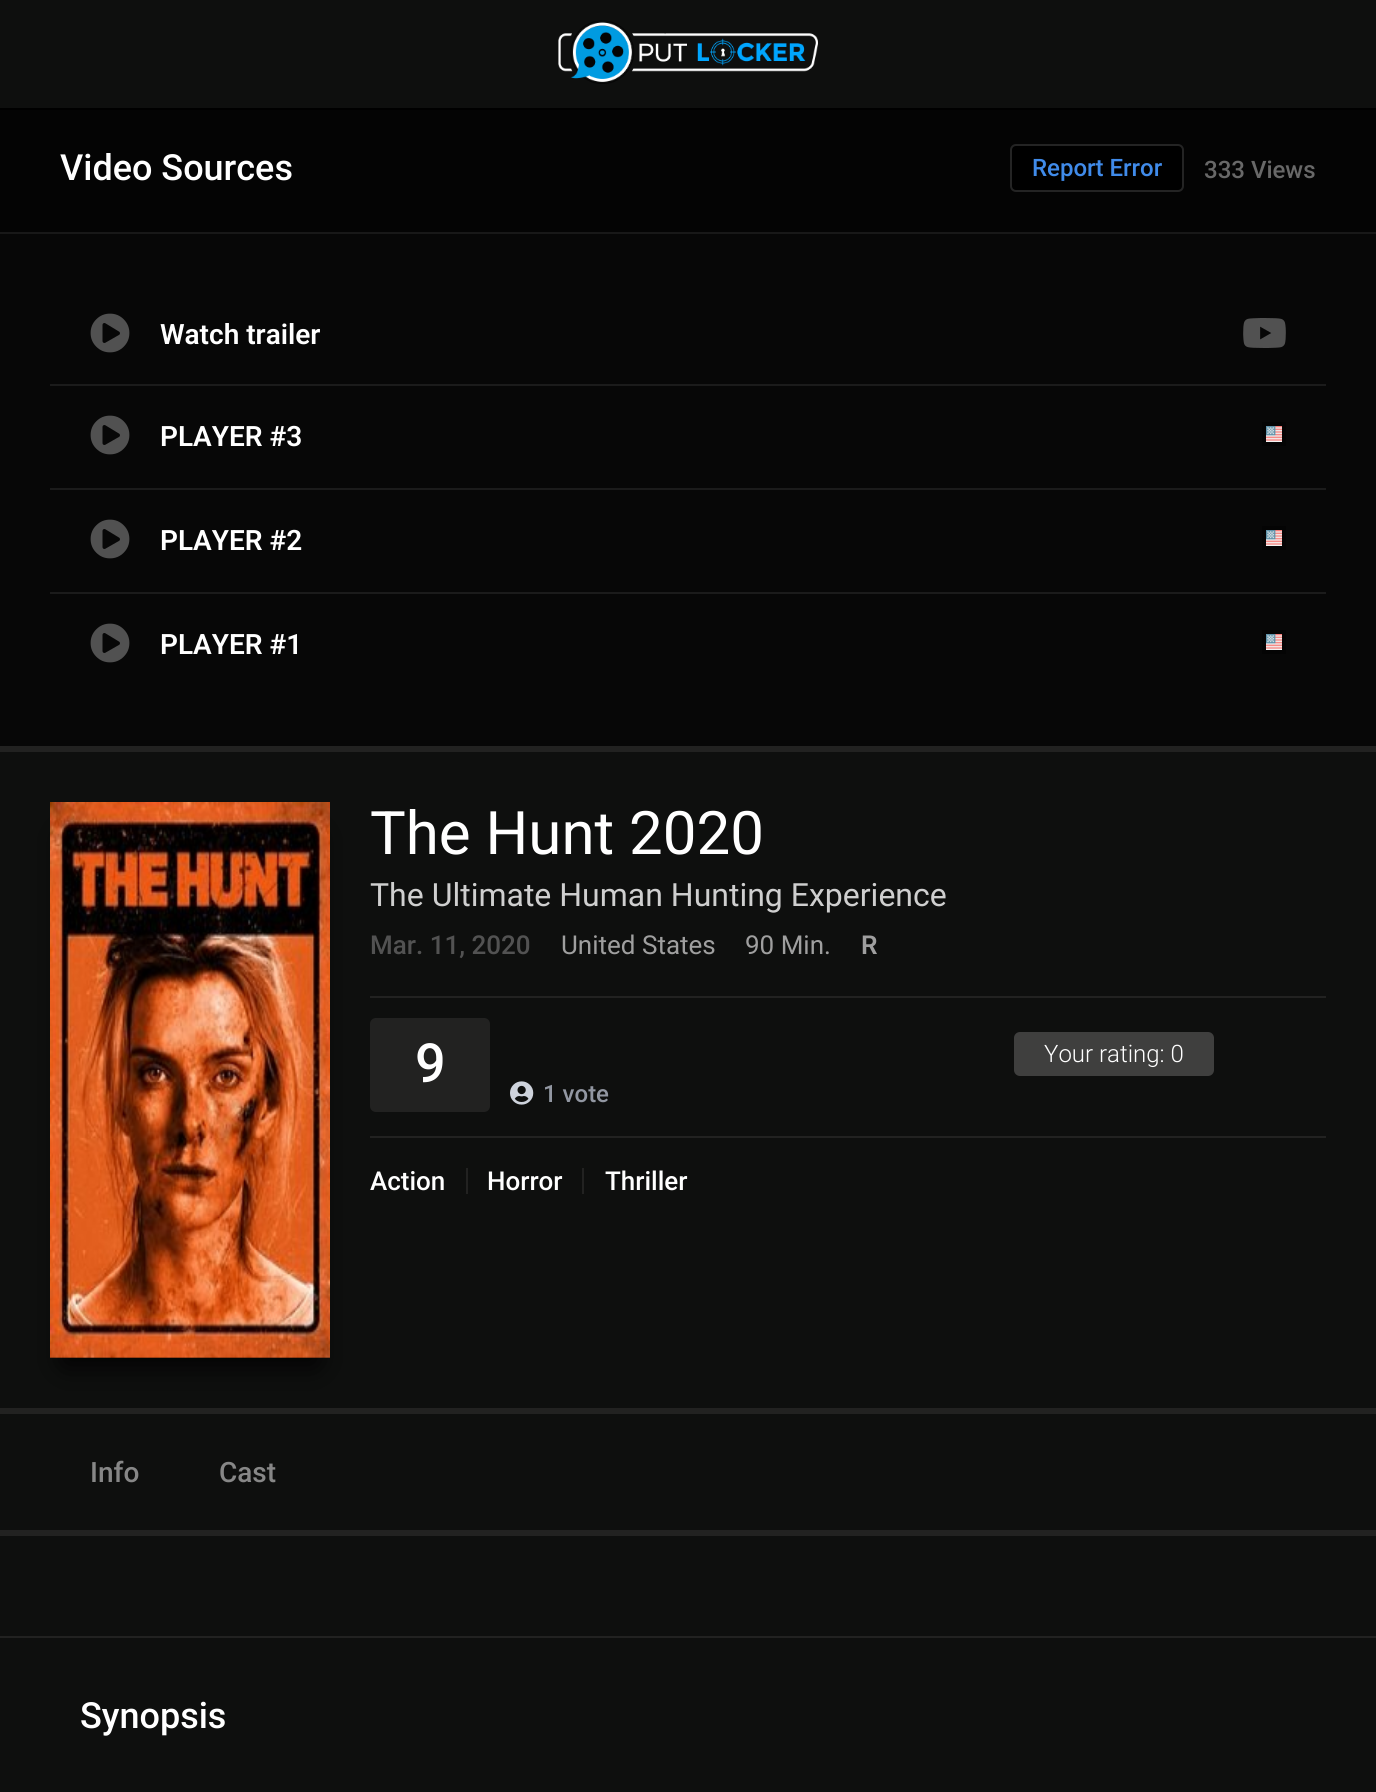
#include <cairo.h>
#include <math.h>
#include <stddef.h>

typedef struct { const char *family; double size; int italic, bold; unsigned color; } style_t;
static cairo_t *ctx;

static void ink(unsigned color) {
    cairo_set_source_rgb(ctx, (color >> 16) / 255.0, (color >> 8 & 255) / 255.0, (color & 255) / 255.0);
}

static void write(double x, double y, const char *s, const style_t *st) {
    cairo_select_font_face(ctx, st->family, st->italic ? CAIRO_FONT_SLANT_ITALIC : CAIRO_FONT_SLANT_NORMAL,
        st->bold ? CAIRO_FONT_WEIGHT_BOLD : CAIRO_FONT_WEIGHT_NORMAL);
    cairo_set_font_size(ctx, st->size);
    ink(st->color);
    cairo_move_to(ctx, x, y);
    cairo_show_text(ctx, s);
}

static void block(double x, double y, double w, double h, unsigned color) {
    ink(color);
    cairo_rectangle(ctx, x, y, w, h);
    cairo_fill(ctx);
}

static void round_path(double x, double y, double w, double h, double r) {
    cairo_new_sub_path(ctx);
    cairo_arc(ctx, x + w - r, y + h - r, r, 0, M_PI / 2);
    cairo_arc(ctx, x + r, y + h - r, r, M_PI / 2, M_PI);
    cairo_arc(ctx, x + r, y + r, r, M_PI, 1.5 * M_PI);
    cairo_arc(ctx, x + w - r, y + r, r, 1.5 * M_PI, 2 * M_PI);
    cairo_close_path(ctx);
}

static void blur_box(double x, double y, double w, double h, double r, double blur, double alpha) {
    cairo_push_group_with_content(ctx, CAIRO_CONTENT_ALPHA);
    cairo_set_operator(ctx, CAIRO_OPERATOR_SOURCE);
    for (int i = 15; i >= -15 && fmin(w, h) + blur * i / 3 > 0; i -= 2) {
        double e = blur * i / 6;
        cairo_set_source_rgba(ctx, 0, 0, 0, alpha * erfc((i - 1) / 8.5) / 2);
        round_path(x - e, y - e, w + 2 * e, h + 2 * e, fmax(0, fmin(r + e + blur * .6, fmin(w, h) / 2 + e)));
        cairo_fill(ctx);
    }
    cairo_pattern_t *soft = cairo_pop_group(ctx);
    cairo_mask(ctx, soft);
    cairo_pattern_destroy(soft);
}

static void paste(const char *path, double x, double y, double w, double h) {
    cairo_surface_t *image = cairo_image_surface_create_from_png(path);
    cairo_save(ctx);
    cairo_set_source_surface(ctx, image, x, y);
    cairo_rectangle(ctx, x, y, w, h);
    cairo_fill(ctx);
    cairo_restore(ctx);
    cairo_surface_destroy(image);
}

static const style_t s1 = {"Roboto Medium", 36, 0, 0, 0xffffff};
static const style_t s2 = {"Roboto Medium", 24, 0, 0, 0x408bea};
static const style_t s3 = {"Roboto Medium", 24, 0, 0, 0x686868};
static const style_t s4 = {"Roboto SemiBold", 28, 0, 0, 0xffffff};
static const style_t s5 = {"Roboto", 60, 0, 0, 0xffffff};
static const style_t s6 = {"Roboto", 32, 0, 0, 0xcfcfcf};
static const style_t s7 = {"Roboto Medium", 26, 0, 0, 0x525252};
static const style_t s8 = {"Roboto", 26, 0, 0, 0x9f9f9f};
static const style_t s9 = {"Roboto SemiBold", 26, 0, 0, 0x9f9f9f};
static const style_t s10 = {"Roboto Medium", 54, 0, 0, 0xffffff};
static const style_t s11 = {"Roboto Medium", 24, 0, 0, 0x9297a2};
static const style_t s12 = {"Roboto Light", 24, 0, 0, 0xffffff};
static const style_t s13 = {"Roboto Medium", 26, 0, 0, 0xffffff};
static const style_t s14 = {"Roboto Medium", 28, 0, 0, 0x878787};

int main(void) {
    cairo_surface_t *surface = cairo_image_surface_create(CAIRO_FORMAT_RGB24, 1376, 1792);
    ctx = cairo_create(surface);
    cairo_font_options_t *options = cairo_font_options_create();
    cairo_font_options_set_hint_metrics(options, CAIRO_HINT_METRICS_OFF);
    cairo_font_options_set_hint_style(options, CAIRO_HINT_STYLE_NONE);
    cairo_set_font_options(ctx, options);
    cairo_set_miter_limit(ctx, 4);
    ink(0x0e0f0e);
    cairo_paint(ctx);
    block(0, 108, 1376, 2, 0x000000);
    paste("pic1.png", 558, 20, 260, 64);
    block(0, 746, 1376, 6, 0x222221);
    block(0, 110, 1376, 122, 0x040404);
    block(0, 232, 1376, 2, 0x181818);
    write(60, 180, "Video Sources", &s1);
    ink(0x000000);
    round_path(1011, 145, 172, 46, 5);
    cairo_fill_preserve(ctx);
    ink(0x242424);
    cairo_stroke(ctx);
    write(1032, 176, "Report Error", &s2);
    write(1204, 178, "333 Views", &s3);
    block(0, 234, 1376, 512, 0x070707);
    block(50, 384, 1276, 2, 0x1b1b1b);
    paste("pic2.png", 90, 313, 40, 40);
    write(160, 344, "Watch trailer", &s4);
    paste("pic3.png", 1243, 318, 43, 30);
    block(50, 488, 1276, 2, 0x1b1b1b);
    paste("pic2.png", 90, 415, 40, 40);
    write(160, 446, "PLAYER #3", &s4);
    cairo_rectangle(ctx, 1264, 424, 20, 20);
    ink(0x040404);
    cairo_set_line_width(ctx, 4);
    cairo_stroke(ctx);
    paste("pic4.png", 1266, 426, 16, 16);
    block(50, 592, 1276, 2, 0x1b1b1b);
    paste("pic2.png", 90, 519, 40, 40);
    write(160, 550, "PLAYER #2", &s4);
    cairo_rectangle(ctx, 1264, 528, 20, 20);
    ink(0x040404);
    cairo_stroke(ctx);
    paste("pic4.png", 1266, 530, 16, 16);
    paste("pic2.png", 90, 623, 40, 40);
    write(160, 654, "PLAYER #1", &s4);
    cairo_rectangle(ctx, 1264, 632, 20, 20);
    ink(0x040404);
    cairo_stroke(ctx);
    paste("pic4.png", 1266, 634, 16, 16);
    block(0, 1408, 1376, 6, 0x222221);
    ink(0x000000);
    blur_box(64, 836, 252, 528, 0, 15, 1);
    paste("pic5.png", 50, 802, 280, 556);
    write(370, 854, "The Hunt 2020", &s5);
    write(370, 906, "The Ultimate Human Hunting Experience", &s6);
    write(370, 954, "Mar. 11, 2020", &s7);
    write(561, 954, "United States", &s8);
    write(745, 954, "90 Min.", &s8);
    write(861, 954, "R", &s9);
    block(370, 996, 956, 2, 0x222221);
    block(370, 1136, 956, 2, 0x222221);
    round_path(370, 1018, 120, 94, 6);
    cairo_fill(ctx);
    write(415, 1082, "9", &s10);
    paste("pic6.png", 510, 1081, 24, 24);
    write(543, 1102, "1 vote", &s11);
    ink(0x3f3f3e);
    round_path(1014, 1032, 200, 44, 6);
    cairo_fill(ctx);
    write(1044, 1062, "Your rating: 0", &s12);
    write(370, 1190, "Action", &s13);
    block(466, 1168, 2, 26, 0x222221);
    write(487, 1190, "Horror", &s13);
    block(582, 1168, 2, 26, 0x222221);
    write(605, 1190, "Thriller", &s13);
    block(0, 1530, 1376, 6, 0x222221);
    write(90, 1482, "Info", &s14);
    write(219, 1482, "Cast", &s14);
    block(0, 1636, 1376, 2, 0x222221);
    write(80, 1728, "Synopsis", &s1);
    cairo_surface_write_to_png(surface, "screenshot.png");
    cairo_font_options_destroy(options);
    cairo_destroy(ctx);
    cairo_surface_destroy(surface);
    return 0;
}
